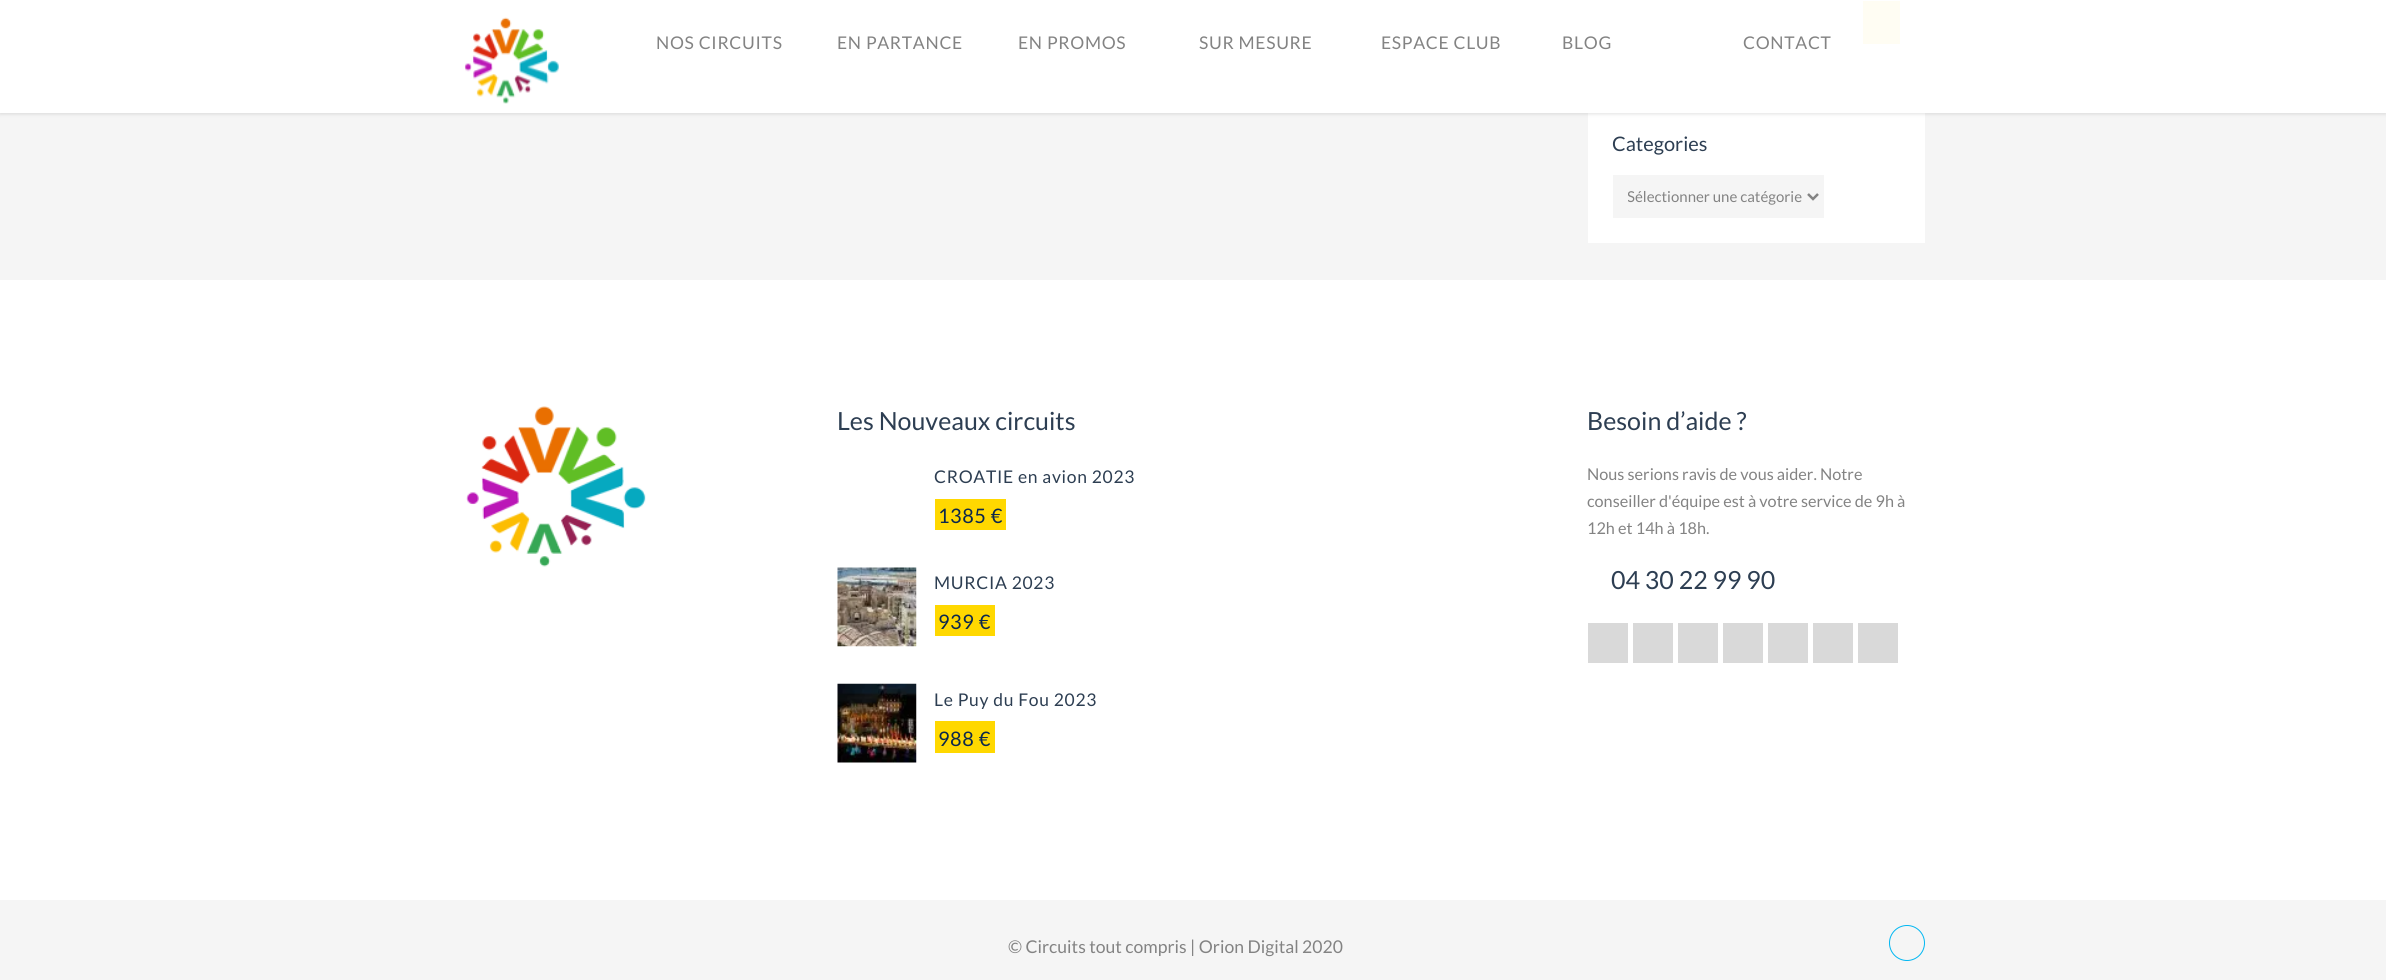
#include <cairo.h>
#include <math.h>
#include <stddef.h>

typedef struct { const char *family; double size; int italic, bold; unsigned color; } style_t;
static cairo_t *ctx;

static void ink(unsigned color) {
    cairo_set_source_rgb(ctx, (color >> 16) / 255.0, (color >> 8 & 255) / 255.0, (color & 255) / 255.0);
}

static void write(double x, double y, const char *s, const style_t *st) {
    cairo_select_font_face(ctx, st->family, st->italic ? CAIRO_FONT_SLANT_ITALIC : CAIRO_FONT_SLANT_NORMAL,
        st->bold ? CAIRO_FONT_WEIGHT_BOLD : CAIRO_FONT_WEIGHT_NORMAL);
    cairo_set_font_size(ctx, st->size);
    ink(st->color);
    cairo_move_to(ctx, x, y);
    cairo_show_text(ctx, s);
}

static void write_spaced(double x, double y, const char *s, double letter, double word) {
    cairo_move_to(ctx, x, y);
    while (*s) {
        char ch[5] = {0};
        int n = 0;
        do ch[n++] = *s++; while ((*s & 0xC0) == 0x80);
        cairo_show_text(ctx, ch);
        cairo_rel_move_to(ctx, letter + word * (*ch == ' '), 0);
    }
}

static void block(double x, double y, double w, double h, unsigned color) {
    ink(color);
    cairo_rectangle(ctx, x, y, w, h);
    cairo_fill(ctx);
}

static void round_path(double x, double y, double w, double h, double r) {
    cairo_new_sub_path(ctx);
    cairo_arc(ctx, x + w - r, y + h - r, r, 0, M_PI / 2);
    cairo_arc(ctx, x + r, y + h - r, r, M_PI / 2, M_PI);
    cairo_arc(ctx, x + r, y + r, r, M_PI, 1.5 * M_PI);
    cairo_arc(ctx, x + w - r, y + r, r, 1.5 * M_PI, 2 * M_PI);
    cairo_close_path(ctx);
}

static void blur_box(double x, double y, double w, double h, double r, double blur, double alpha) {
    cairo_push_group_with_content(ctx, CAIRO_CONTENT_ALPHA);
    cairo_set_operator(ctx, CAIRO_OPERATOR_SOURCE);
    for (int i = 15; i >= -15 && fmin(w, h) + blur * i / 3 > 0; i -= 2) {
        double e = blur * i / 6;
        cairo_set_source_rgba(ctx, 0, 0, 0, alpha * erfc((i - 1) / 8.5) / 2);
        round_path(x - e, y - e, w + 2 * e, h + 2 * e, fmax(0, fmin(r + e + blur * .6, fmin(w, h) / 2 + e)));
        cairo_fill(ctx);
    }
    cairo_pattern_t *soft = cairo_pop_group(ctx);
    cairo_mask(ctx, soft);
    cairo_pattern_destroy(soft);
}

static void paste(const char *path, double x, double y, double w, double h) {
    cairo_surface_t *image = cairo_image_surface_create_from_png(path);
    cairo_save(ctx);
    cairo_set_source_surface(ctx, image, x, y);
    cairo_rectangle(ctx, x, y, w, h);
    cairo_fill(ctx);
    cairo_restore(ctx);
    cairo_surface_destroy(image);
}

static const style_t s1 = {"Lato", 20, 0, 0, 0x2d3e52};
static const style_t s2 = {"Lato", 15, 0, 0, 0x838383};
static const style_t s3 = {"Lato", 25, 0, 0, 0x2d3e52};
static const style_t s4 = {"Lato", 16.25, 0, 0, 0x838383};
static const style_t s5 = {"Lato", 17.6, 0, 0, 0x838383};

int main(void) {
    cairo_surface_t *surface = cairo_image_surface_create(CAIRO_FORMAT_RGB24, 2386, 980);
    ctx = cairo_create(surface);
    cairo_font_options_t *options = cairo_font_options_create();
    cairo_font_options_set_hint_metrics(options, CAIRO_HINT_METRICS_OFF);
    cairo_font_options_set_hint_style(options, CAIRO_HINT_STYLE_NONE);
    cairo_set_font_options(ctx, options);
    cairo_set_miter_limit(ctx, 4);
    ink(0xffffff);
    cairo_paint(ctx);
    block(0, 0, 2386, 280, 0xf5f5f5);
    block(1588, 0, 337, 69, 0xffffff);
    block(1613, 1, 250, 43, 0xf5f5f5);
    block(1863, 1, 37, 43, 0xffd800);
    block(1588, 106, 337, 137, 0xffffff);
    cairo_save(ctx);
    cairo_set_fill_rule(ctx, CAIRO_FILL_RULE_EVEN_ODD);
    cairo_new_path(ctx);
    cairo_move_to(ctx, 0, 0);
    cairo_line_to(ctx, 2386, 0);
    cairo_line_to(ctx, 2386, 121);
    cairo_line_to(ctx, 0, 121);
    cairo_close_path(ctx);
    cairo_move_to(ctx, 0, 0);
    cairo_line_to(ctx, 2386, 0);
    cairo_line_to(ctx, 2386, 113);
    cairo_line_to(ctx, 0, 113);
    cairo_close_path(ctx);
    cairo_clip(ctx);
    ink(0x000000);
    blur_box(0, 1, 2386, 113, 0, 2, 0.12);
    cairo_restore(ctx);
    cairo_set_source_rgba(ctx, 1, 1, 1, 0.95);
    cairo_rectangle(ctx, 0, 0, 2386, 113);
    cairo_fill(ctx);
    paste("pic1.png", 464, 17, 95, 87);
    cairo_select_font_face(ctx, "Lato", CAIRO_FONT_SLANT_NORMAL, CAIRO_FONT_WEIGHT_NORMAL);
    cairo_set_font_size(ctx, 17.5);
    ink(0x838383);
    write_spaced(656, 49, "NOS CIRCUITS", 0.7, 0);
    write_spaced(837, 49, "EN PARTANCE", 0.7, 0);
    write_spaced(1018, 49, "EN PROMOS", 0.7, 0);
    write_spaced(1199, 49, "SUR MESURE", 0.7, 0);
    write_spaced(1381, 49, "ESPACE CLUB", 0.7, 0);
    write_spaced(1562, 49, "BLOG", 0.7, 0);
    write_spaced(1743, 49, "CONTACT", 0.7, 0);
    write(1612, 151, "Categories", &s1);
    block(1613, 175, 211, 43, 0xf5f5f5);
    cairo_new_path(ctx);
    cairo_move_to(ctx, 1808, 194);
    cairo_line_to(ctx, 1813, 199);
    cairo_line_to(ctx, 1818, 194);
    ink(0x838383);
    cairo_set_line_width(ctx, 2.5);
    cairo_stroke(ctx);
    cairo_save(ctx);
    cairo_rectangle(ctx, 1628, 186, 176, 22);
    cairo_clip(ctx);
    write(1627, 202, "Sélectionner une catégorie", &s2);
    cairo_restore(ctx);
    paste("pic2.png", 466, 406, 180, 161);
    write(837, 430, "Les Nouveaux circuits", &s3);
    cairo_set_font_size(ctx, 17.5);
    write_spaced(934, 483, "CROATIE en avion 2023", 0.7, 0);
    block(935, 499, 71, 31, 0xffd800);
    cairo_set_font_size(ctx, 20);
    ink(0x0b274d);
    write_spaced(938, 523, "1385 €", 0.5, 0);
    paste("pic3.png", 837, 567, 80, 80);
    cairo_set_font_size(ctx, 17.5);
    ink(0x2d3e52);
    write_spaced(934, 589, "MURCIA 2023", 0.7, 0);
    block(935, 605, 60, 31, 0xffd800);
    cairo_set_font_size(ctx, 20);
    ink(0x0b274d);
    write_spaced(938, 629, "939 €", 0.5, 0);
    paste("pic4.png", 837, 683, 80, 80);
    cairo_set_font_size(ctx, 17.5);
    ink(0x2d3e52);
    write_spaced(934, 706, "Le Puy du Fou 2023", 0.7, 0);
    block(935, 721, 60, 32, 0xffd800);
    cairo_set_font_size(ctx, 20);
    ink(0x0b274d);
    write_spaced(938, 746, "988 €", 0.5, 0);
    write(1587, 430, "Besoin d’aide ?", &s3);
    write(1587, 480, "Nous serions ravis de vous aider. Notre", &s4);
    write(1587, 507, "conseiller d'équipe est à votre service de 9h à", &s4);
    write(1587, 534, "12h et 14h à 18h.", &s4);
    write(1611, 589, "04 30 22 99 90", &s3);
    block(1588, 623, 40, 40, 0xd9d9d9);
    block(1633, 623, 40, 40, 0xd9d9d9);
    block(1678, 623, 40, 40, 0xd9d9d9);
    block(1723, 623, 40, 40, 0xd9d9d9);
    block(1768, 623, 40, 40, 0xd9d9d9);
    block(1813, 623, 40, 40, 0xd9d9d9);
    block(1858, 623, 40, 40, 0xd9d9d9);
    block(0, 900, 2386, 80, 0xf5f5f5);
    write(1008, 953, "© Circuits tout compris | Orion Digital 2020", &s5);
    cairo_new_path(ctx);
    cairo_arc(ctx, 1907, 943, 17.5, 0, 2 * M_PI);
    ink(0x01b7f2);
    cairo_set_line_width(ctx, 1);
    cairo_stroke(ctx);
    cairo_surface_write_to_png(surface, "screenshot.png");
    cairo_font_options_destroy(options);
    cairo_destroy(ctx);
    cairo_surface_destroy(surface);
    return 0;
}
